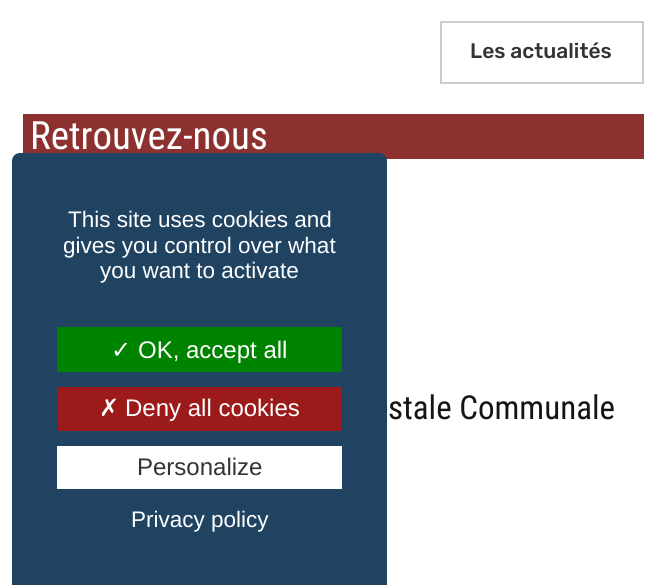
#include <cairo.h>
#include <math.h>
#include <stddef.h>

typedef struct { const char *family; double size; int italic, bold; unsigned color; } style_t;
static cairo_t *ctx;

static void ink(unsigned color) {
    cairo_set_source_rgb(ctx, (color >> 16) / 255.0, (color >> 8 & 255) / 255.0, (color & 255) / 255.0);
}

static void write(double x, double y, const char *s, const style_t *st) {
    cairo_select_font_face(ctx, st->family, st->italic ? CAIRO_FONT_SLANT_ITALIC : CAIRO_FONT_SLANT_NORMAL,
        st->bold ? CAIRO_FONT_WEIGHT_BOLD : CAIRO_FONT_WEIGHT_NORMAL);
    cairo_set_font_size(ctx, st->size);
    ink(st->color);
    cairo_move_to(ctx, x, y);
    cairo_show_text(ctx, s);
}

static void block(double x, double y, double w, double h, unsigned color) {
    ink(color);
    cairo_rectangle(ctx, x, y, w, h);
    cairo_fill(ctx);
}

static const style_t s1 = {"Rubik Medium", 21, 0, 0, 0x333333};
static const style_t s2 = {"Roboto Condensed", 39, 0, 0, 0xffffff};
static const style_t s3 = {"Roboto Condensed", 33, 0, 0, 0x151515};
static const style_t s4 = {"Liberation Sans", 22.5, 0, 0, 0xffffff};
static const style_t s5 = {"DejaVu Sans", 24, 0, 0, 0xffffff};
static const style_t s6 = {"Liberation Sans", 24, 0, 0, 0xffffff};
static const style_t s7 = {"Liberation Sans", 24, 0, 0, 0x333333};

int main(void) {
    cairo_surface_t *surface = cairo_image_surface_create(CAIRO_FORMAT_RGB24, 665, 585);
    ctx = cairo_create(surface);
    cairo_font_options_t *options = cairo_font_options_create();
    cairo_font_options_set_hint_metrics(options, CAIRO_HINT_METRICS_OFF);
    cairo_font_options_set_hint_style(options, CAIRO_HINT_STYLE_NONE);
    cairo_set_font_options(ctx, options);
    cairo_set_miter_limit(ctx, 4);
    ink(0xffffff);
    cairo_paint(ctx);
    cairo_rectangle(ctx, 441, 22, 202, 61);
    ink(0xcccccc);
    cairo_stroke(ctx);
    write(470, 58, "Les actualités", &s1);
    block(23, 114, 621, 45, 0x8d3030);
    write(30, 149, "Retrouvez-nous", &s2);
    write(388, 419, "stale Communale", &s3);
    ink(0x214362);
    cairo_new_path(ctx);
    cairo_move_to(ctx, 20, 153);
    cairo_line_to(ctx, 379, 153);
    cairo_curve_to(ctx, 383.5, 153, 387, 156.5, 387, 161);
    cairo_line_to(ctx, 387, 585);
    cairo_line_to(ctx, 12, 585);
    cairo_line_to(ctx, 12, 161);
    cairo_curve_to(ctx, 12, 156.5, 15.5, 153, 20, 153);
    cairo_close_path(ctx);
    cairo_fill(ctx);
    write(68, 227, "This site uses cookies and", &s4);
    write(63, 253, "gives you control over what", &s4);
    write(100, 278, "you want to activate", &s4);
    block(57, 327, 285, 45, 0x008300);
    write(111, 358, "✓", &s5);
    write(138, 358, "OK, accept all", &s6);
    block(57, 387, 285, 44, 0x9c1a1a);
    write(99, 416, "✗", &s5);
    write(125, 416, "Deny all cookies", &s6);
    block(57, 446, 285, 43, 0xffffff);
    write(137, 475, "Personalize", &s7);
    write(131, 527, "Privacy policy", &s4);
    cairo_surface_write_to_png(surface, "screenshot.png");
    cairo_font_options_destroy(options);
    cairo_destroy(ctx);
    cairo_surface_destroy(surface);
    return 0;
}
